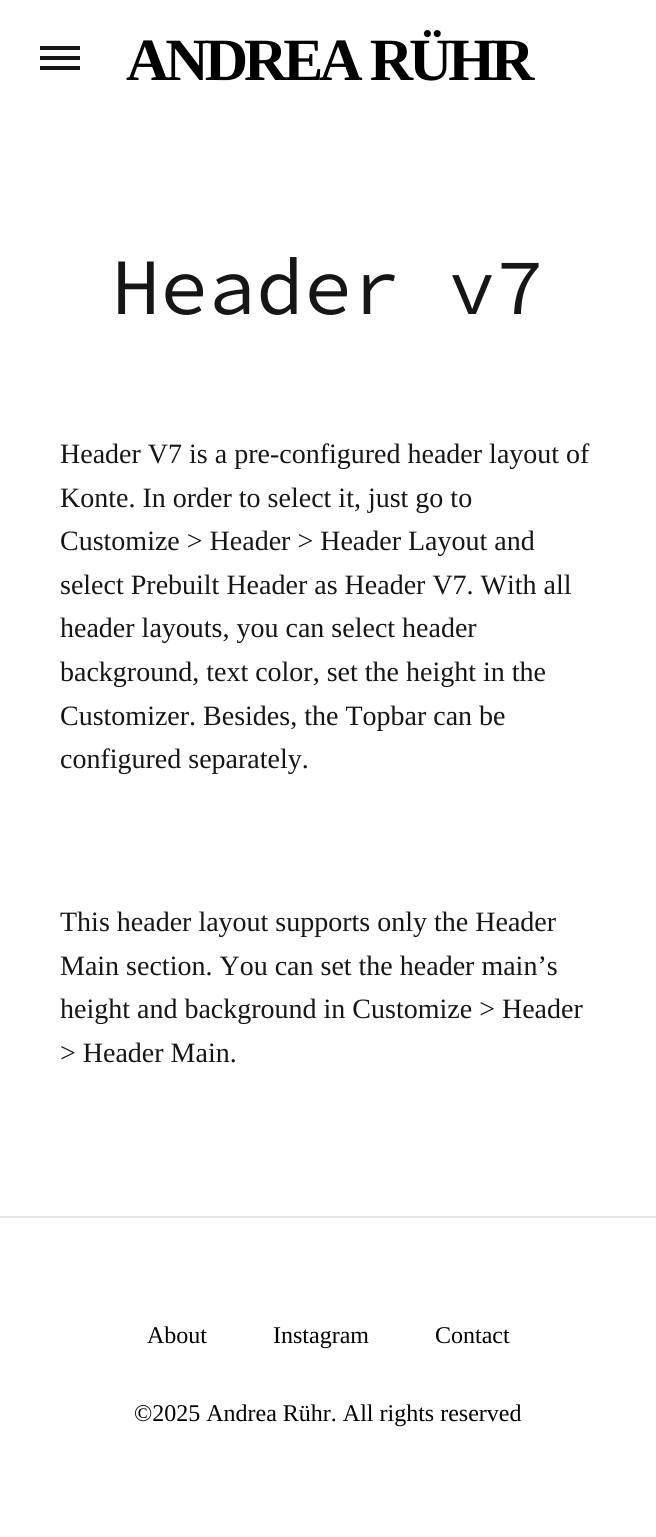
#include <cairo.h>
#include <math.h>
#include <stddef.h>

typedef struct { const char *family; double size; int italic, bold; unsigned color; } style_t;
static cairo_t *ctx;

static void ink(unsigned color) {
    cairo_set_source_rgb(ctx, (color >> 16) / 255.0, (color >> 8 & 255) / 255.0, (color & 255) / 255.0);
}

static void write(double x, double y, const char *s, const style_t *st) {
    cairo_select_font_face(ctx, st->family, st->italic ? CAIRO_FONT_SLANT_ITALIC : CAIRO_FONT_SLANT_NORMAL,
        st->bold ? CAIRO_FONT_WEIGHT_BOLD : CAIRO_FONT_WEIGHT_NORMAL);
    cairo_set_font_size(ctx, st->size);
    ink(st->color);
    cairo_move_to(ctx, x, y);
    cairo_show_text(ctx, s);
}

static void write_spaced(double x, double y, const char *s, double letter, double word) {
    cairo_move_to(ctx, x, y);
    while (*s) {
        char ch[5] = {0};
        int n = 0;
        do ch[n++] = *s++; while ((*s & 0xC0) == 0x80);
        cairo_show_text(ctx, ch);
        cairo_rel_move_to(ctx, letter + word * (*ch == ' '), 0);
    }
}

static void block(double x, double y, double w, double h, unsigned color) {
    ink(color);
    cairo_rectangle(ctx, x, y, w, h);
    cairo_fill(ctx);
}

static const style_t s1 = {"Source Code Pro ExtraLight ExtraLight", 80, 0, 0, 0x161619};
static const style_t s2 = {"Liberation Serif", 28, 0, 0, 0x161619};
static const style_t s3 = {"Liberation Serif", 24, 0, 0, 0x000000};

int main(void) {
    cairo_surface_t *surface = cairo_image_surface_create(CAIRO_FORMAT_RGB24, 656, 1537);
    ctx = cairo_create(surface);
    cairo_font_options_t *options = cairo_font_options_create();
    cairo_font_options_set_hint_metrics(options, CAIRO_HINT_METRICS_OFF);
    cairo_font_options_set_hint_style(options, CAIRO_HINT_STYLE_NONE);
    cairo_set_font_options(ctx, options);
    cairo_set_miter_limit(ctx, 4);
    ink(0xffffff);
    cairo_paint(ctx);
    block(40, 56, 40, 4, 0x161619);
    block(40, 46, 40, 4, 0x161619);
    block(40, 66, 40, 4, 0x161619);
    cairo_select_font_face(ctx, "Liberation Serif", CAIRO_FONT_SLANT_NORMAL, CAIRO_FONT_WEIGHT_BOLD);
    cairo_set_font_size(ctx, 60);
    ink(0x000000);
    write_spaced(126, 80, "ANDREA RÜHR", -4, 0);
    write(112, 314, "Header v7", &s1);
    write(60, 463, "Header V7 is a pre-configured header layout of", &s2);
    write(60, 507, "Konte. In order to select it, just go to", &s2);
    write(60, 550, "Customize > Header > Header Layout and", &s2);
    write(60, 594, "select Prebuilt Header as Header V7. With all", &s2);
    write(60, 637, "header layouts, you can select header", &s2);
    write(60, 681, "background, text color, set the height in the", &s2);
    write(60, 725, "Customizer. Besides, the Topbar can be", &s2);
    write(60, 768, "configured separately.", &s2);
    write(60, 931, "This header layout supports only the Header", &s2);
    write(60, 975, "Main section. You can set the header main’s", &s2);
    write(60, 1018, "height and background in Customize > Header", &s2);
    write(60, 1062, "> Header Main.", &s2);
    block(0, 1216, 656, 2, 0xe3e7e8);
    write(147, 1343, "About", &s3);
    write(273, 1343, "Instagram", &s3);
    write(435, 1343, "Contact", &s3);
    write(134, 1421, "©2025 Andrea Rühr. All rights reserved", &s3);
    cairo_surface_write_to_png(surface, "screenshot.png");
    cairo_font_options_destroy(options);
    cairo_destroy(ctx);
    cairo_surface_destroy(surface);
    return 0;
}
